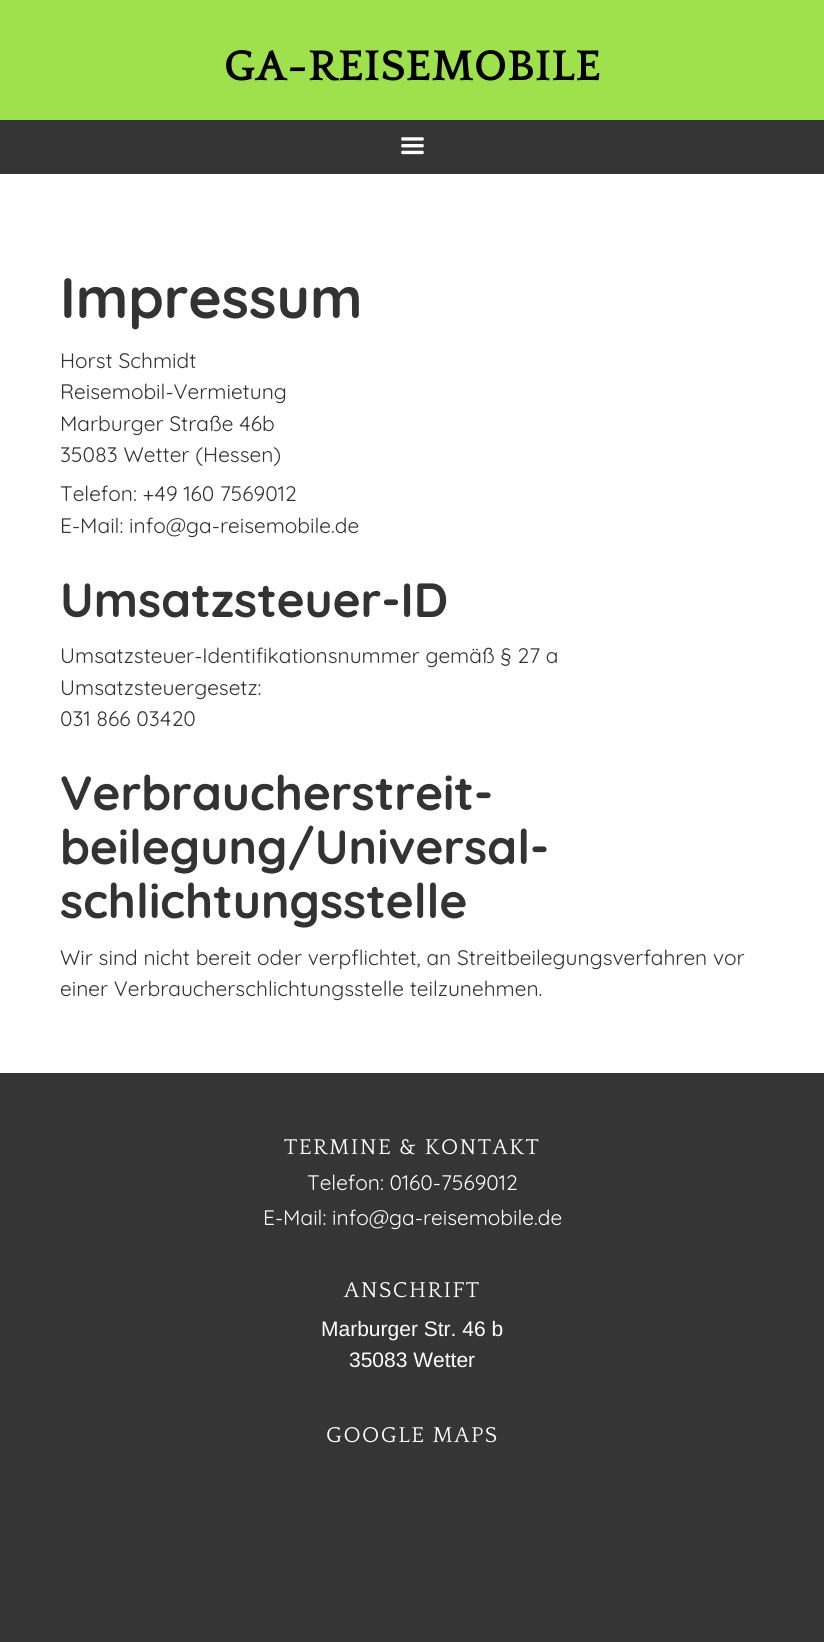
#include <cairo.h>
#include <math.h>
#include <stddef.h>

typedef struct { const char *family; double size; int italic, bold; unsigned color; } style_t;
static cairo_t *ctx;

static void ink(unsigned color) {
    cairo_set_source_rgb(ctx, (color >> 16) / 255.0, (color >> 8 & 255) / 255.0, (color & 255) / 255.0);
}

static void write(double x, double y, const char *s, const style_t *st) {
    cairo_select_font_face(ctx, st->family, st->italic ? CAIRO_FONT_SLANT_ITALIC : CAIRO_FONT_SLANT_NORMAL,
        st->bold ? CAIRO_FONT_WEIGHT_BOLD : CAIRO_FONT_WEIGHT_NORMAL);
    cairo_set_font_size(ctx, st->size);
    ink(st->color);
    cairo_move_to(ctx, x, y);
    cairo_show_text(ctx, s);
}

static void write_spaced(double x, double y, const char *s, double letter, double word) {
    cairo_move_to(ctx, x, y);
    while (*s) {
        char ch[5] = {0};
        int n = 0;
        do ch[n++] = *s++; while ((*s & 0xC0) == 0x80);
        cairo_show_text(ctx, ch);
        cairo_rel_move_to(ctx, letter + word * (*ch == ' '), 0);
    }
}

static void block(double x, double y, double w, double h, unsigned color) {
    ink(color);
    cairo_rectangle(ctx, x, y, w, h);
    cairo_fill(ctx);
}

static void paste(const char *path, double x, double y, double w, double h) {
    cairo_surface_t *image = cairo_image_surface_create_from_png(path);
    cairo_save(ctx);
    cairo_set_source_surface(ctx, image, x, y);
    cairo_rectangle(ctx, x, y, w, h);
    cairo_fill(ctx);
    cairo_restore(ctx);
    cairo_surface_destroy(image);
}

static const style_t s1 = {"Quattrocento", 45, 0, 1, 0x000000};
static const style_t s2 = {"Quicksand", 57, 0, 1, 0x333333};
static const style_t s3 = {"Quicksand", 21, 0, 0, 0x333333};
static const style_t s4 = {"Quicksand", 48, 0, 1, 0x333333};
static const style_t s5 = {"Quicksand", 21, 0, 0, 0xffffff};
static const style_t s6 = {"Liberation Sans", 21, 0, 0, 0xffffff};

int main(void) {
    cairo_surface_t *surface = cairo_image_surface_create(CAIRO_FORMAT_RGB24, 824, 1642);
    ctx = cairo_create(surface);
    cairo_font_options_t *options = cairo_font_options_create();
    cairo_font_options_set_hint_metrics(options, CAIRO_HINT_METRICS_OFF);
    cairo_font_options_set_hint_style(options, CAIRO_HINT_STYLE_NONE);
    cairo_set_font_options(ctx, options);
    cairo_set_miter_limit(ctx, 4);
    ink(0xffffff);
    cairo_paint(ctx);
    block(0, 0, 824, 120, 0x9ee14c);
    write(224, 80, "GA-REISEMOBILE", &s1);
    block(0, 120, 824, 54, 0x353535);
    paste("pic1.png", 401, 137, 23, 18);
    write(60, 318, "Impressum", &s2);
    write(60, 368, "Horst Schmidt", &s3);
    write(60, 399, "Reisemobil-Vermietung", &s3);
    write(60, 431, "Marburger Straße 46b", &s3);
    write(60, 462, "35083 Wetter (Hessen)", &s3);
    write(60, 501, "Telefon: +49 160 7569012", &s3);
    write(60, 533, "E-Mail: info@ga-reisemobile.de", &s3);
    write(60, 617, "Umsatzsteuer-ID", &s4);
    write(60, 663, "Umsatzsteuer-Identifikationsnummer gemäß § 27 a", &s3);
    write(60, 695, "Umsatzsteuergesetz:", &s3);
    write(60, 726, "031 866 03420", &s3);
    write(60, 810, "Verbraucherstreit-", &s4);
    write(60, 864, "beilegung/Universal-", &s4);
    write(60, 918, "schlichtungsstelle", &s4);
    write(60, 965, "Wir sind nicht bereit oder verpflichtet, an Streitbeilegungsverfahren vor", &s3);
    write(60, 996, "einer Verbraucherschlichtungsstelle teilzunehmen.", &s3);
    block(0, 1073, 824, 569, 0x353535);
    cairo_select_font_face(ctx, "Quattrocento", CAIRO_FONT_SLANT_NORMAL, CAIRO_FONT_WEIGHT_NORMAL);
    cairo_set_font_size(ctx, 22.5);
    ink(0xffffff);
    write_spaced(284, 1154, "TERMINE & KONTAKT", 1.5, 0);
    write(307, 1190, "Telefon: 0160-7569012", &s5);
    write(263, 1225, "E-Mail: info@ga-reisemobile.de", &s5);
    cairo_select_font_face(ctx, "Quattrocento", CAIRO_FONT_SLANT_NORMAL, CAIRO_FONT_WEIGHT_NORMAL);
    cairo_set_font_size(ctx, 22.5);
    write_spaced(344, 1297, "ANSCHRIFT", 1.5, 0);
    write(321, 1336, "Marburger Str. 46 b", &s6);
    write(349, 1367, "35083 Wetter", &s6);
    cairo_select_font_face(ctx, "Quattrocento", CAIRO_FONT_SLANT_NORMAL, CAIRO_FONT_WEIGHT_NORMAL);
    cairo_set_font_size(ctx, 22.5);
    write_spaced(326, 1442, "GOOGLE MAPS", 1.5, 0);
    cairo_surface_write_to_png(surface, "screenshot.png");
    cairo_font_options_destroy(options);
    cairo_destroy(ctx);
    cairo_surface_destroy(surface);
    return 0;
}
